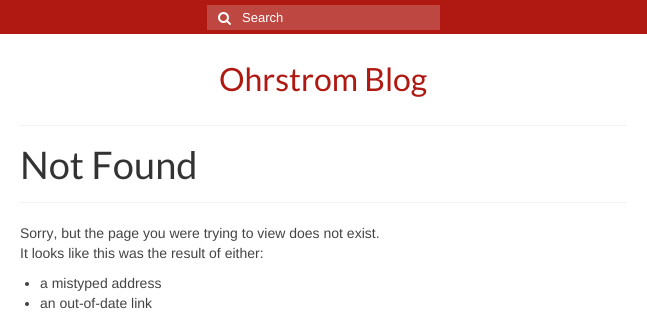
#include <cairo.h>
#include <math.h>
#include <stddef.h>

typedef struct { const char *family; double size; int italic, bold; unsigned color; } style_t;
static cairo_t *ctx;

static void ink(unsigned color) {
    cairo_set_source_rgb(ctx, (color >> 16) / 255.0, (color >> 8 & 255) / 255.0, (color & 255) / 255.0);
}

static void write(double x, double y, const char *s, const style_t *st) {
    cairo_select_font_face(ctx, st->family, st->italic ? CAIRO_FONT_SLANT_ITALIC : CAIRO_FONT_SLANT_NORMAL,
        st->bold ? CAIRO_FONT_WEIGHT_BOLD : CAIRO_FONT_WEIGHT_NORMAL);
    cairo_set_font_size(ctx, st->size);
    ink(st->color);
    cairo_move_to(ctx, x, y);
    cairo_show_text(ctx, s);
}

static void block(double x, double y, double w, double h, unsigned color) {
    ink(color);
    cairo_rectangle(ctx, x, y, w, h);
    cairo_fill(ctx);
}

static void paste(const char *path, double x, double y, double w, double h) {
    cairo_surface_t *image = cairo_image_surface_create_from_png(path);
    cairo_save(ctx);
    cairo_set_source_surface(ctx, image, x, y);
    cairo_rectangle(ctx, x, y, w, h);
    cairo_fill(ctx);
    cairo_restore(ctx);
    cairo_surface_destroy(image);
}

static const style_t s1 = {"Liberation Sans", 13, 0, 0, 0xffffff};
static const style_t s2 = {"Lato", 32, 0, 0, 0xaf1911};
static const style_t s3 = {"Lato", 38, 0, 0, 0x333333};
static const style_t s4 = {"Liberation Sans", 14, 0, 0, 0x444444};

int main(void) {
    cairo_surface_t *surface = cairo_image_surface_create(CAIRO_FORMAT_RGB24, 647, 318);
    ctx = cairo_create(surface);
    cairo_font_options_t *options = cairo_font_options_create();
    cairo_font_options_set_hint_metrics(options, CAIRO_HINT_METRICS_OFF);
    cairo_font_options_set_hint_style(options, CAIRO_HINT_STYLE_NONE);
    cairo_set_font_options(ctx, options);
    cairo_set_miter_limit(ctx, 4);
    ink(0xffffff);
    cairo_paint(ctx);
    block(0, 0, 647, 34, 0xaf1911);
    block(207, 5, 233, 25, 0xbf4741);
    paste("pic1.png", 218, 12, 13, 13);
    write(242, 22, "Search", &s1);
    write(219, 91, "Ohrstrom Blog", &s2);
    block(20, 125, 607, 1, 0xf2f2f2);
    block(20, 202, 607, 1, 0xf2f2f2);
    write(20, 179, "Not Found", &s3);
    write(20, 238, "Sorry, but the page you were trying to view does not exist.", &s4);
    write(20, 258, "It looks like this was the result of either:", &s4);
    cairo_new_path(ctx);
    cairo_arc(ctx, 27, 284, 2, 0, 2 * M_PI);
    cairo_fill(ctx);
    write(40, 288, "a mistyped address", &s4);
    cairo_new_path(ctx);
    cairo_arc(ctx, 27, 304, 2, 0, 2 * M_PI);
    cairo_fill(ctx);
    write(40, 308, "an out-of-date link", &s4);
    cairo_surface_write_to_png(surface, "screenshot.png");
    cairo_font_options_destroy(options);
    cairo_destroy(ctx);
    cairo_surface_destroy(surface);
    return 0;
}
